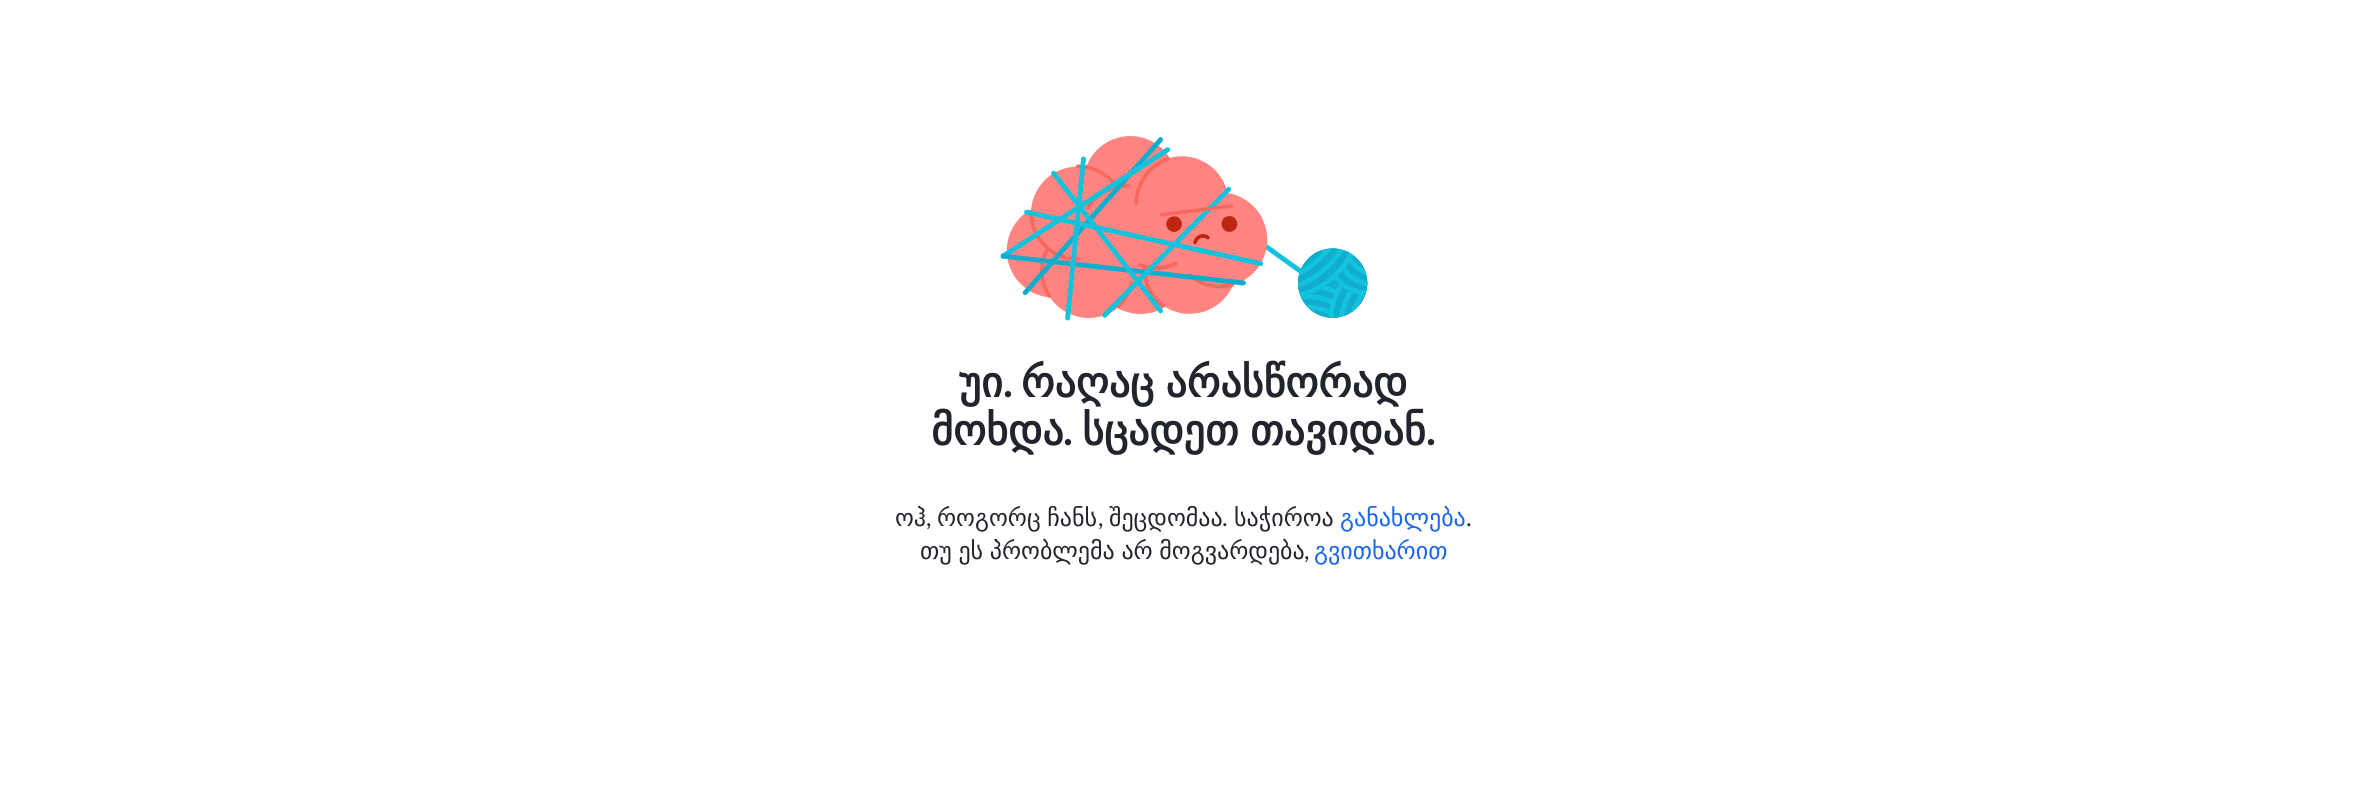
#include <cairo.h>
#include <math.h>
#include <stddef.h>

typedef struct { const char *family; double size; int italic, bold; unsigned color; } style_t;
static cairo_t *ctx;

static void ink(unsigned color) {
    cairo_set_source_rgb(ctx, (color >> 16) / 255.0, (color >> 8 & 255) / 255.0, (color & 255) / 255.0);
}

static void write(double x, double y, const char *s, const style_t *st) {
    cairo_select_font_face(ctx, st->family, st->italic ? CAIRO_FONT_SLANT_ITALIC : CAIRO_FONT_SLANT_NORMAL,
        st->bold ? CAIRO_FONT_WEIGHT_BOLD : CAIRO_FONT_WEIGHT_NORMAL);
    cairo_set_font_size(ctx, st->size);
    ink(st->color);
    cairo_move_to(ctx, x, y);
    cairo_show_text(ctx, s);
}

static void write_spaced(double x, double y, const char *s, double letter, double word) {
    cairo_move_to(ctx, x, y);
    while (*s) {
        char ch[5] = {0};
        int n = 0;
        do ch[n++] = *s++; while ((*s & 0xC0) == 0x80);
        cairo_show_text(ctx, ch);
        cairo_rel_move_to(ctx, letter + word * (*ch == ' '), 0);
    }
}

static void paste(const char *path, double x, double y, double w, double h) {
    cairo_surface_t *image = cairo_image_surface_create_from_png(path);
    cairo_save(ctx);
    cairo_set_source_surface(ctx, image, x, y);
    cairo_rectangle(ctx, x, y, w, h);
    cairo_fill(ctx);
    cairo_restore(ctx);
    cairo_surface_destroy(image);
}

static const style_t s1 = {"DejaVu Sans", 42, 0, 1, 0x21242c};
static const style_t s2 = {"Lato", 42, 0, 1, 0x21242c};
static const style_t s3 = {"DejaVu Sans", 24, 0, 0, 0x21242c};
static const style_t s4 = {"Lato", 24, 0, 0, 0x21242c};
static const style_t s5 = {"DejaVu Sans", 24, 0, 0, 0x1865f2};

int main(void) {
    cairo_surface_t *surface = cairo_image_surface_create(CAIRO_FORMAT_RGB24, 2366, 790);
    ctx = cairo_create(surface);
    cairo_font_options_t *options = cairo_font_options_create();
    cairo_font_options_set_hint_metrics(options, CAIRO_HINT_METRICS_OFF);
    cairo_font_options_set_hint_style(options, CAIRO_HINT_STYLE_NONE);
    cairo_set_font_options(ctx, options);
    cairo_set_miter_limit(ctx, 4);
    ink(0xffffff);
    cairo_paint(ctx);
    paste("pic1.png", 1000, 136, 368, 185);
    write(959, 397, "უი", &s1);
    write(1003, 397, ".", &s2);
    cairo_select_font_face(ctx, "DejaVu Sans", CAIRO_FONT_SLANT_NORMAL, CAIRO_FONT_WEIGHT_BOLD);
    write_spaced(1021, 397, "რაღაც არასწორად", 0, -2);
    write(931, 445, "მოხდა", &s1);
    write(1063, 445, ".", &s2);
    cairo_select_font_face(ctx, "DejaVu Sans", CAIRO_FONT_SLANT_NORMAL, CAIRO_FONT_WEIGHT_BOLD);
    write_spaced(1082, 445, "სცადეთ თავიდან", 0, -2);
    write(1426, 445, ".", &s2);
    write(895, 526, "ოჰ", &s3);
    write(926, 526, ",", &s4);
    cairo_select_font_face(ctx, "DejaVu Sans", CAIRO_FONT_SLANT_NORMAL, CAIRO_FONT_WEIGHT_NORMAL);
    write_spaced(937, 526, "როგორც ჩანს", 0, -1);
    write(1098, 526, ",", &s4);
    write(1109, 526, "შეცდომაა", &s3);
    write(1222, 526, ".", &s4);
    write(1234, 526, "საჭიროა", &s3);
    write(1340, 526, "განახლება", &s5);
    write(1466, 526, ".", &s4);
    cairo_select_font_face(ctx, "DejaVu Sans", CAIRO_FONT_SLANT_NORMAL, CAIRO_FONT_WEIGHT_NORMAL);
    write_spaced(920, 559, "თუ ეს პრობლემა არ მოგვარდება", 0, -1);
    write(1304, 559, ",", &s4);
    write(1314, 559, "გვითხარით", &s5);
    cairo_surface_write_to_png(surface, "screenshot.png");
    cairo_font_options_destroy(options);
    cairo_destroy(ctx);
    cairo_surface_destroy(surface);
    return 0;
}
